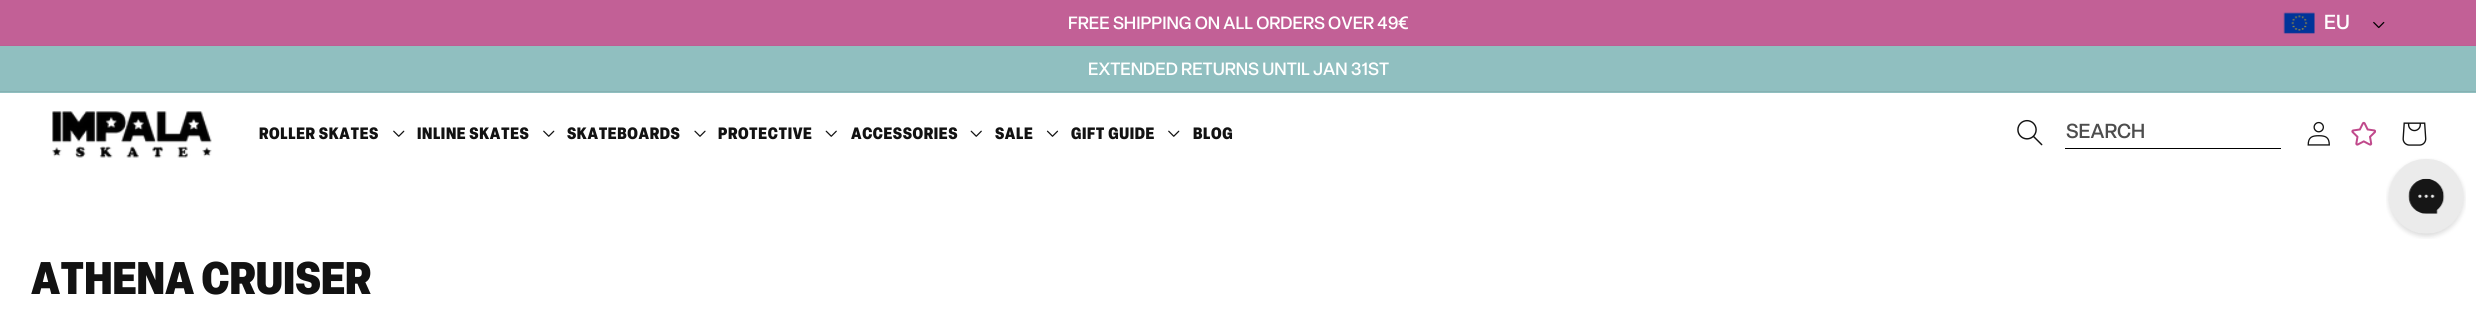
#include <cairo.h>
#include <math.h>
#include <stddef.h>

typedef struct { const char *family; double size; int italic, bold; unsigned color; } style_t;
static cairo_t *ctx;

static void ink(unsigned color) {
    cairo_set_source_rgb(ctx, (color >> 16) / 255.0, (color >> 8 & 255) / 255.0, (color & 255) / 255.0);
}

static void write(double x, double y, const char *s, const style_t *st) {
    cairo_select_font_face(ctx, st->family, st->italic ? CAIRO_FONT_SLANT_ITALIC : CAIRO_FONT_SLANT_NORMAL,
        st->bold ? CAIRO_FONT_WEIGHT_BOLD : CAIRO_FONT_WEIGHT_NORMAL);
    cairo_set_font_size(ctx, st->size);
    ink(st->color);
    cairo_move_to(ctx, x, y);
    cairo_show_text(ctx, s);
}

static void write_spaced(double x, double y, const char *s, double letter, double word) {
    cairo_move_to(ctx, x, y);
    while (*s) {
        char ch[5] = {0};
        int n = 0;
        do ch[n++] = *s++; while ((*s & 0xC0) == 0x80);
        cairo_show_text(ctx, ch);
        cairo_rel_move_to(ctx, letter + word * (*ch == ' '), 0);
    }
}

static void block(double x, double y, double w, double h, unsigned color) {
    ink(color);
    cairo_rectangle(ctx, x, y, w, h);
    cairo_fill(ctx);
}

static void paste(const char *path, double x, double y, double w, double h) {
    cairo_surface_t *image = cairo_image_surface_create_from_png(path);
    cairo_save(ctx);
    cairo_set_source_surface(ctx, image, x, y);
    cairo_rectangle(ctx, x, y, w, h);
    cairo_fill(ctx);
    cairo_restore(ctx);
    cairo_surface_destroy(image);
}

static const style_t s1 = {"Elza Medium", 17.5, 0, 0, 0xffffff};
static const style_t s2 = {"Elza Medium", 20, 0, 0, 0xffffff};
static const style_t s3 = {"Elza Medium", 20, 0, 0, 0x4d4d4d};
static const style_t s4 = {"Elza Black", 45, 0, 0, 0x121212};

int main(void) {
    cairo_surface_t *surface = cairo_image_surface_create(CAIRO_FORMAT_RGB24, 2476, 329);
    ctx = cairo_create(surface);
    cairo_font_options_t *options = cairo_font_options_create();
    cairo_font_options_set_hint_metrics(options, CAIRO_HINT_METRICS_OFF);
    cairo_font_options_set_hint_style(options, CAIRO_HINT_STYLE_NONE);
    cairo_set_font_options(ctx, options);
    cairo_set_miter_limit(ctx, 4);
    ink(0xffffff);
    cairo_paint(ctx);
    block(0, 46, 2476, 47, 0x90bfc0);
    block(0, 45, 2476, 1, 0xbe5e93);
    block(0, 0, 2476, 45, 0xc26096);
    write(1068, 29, "FREE SHIPPING ON ALL ORDERS OVER 49€", &s1);
    paste("pic1.png", 2283, 12, 32, 22);
    write(2324, 29, "EU", &s2);
    paste("pic2.png", 2373, 21, 12, 8);
    block(0, 91, 2476, 1, 0x86b1b2);
    write(1088, 75, "EXTENDED RETURNS UNTIL JAN 31ST", &s1);
    paste("pic3.png", 52, 111, 160, 47);
    cairo_select_font_face(ctx, "Elza Black", CAIRO_FONT_SLANT_NORMAL, CAIRO_FONT_WEIGHT_NORMAL);
    cairo_set_font_size(ctx, 16.25);
    ink(0x121212);
    write_spaced(259, 139, "ROLLER SKATES", 0.6, 0);
    paste("pic4.png", 393, 130, 12, 7);
    write_spaced(417, 139, "INLINE SKATES", 0.6, 0);
    paste("pic4.png", 543, 130, 12, 7);
    write_spaced(567, 139, "SKATEBOARDS", 0.6, 0);
    paste("pic5.png", 694, 130, 12, 7);
    write_spaced(718, 139, "PROTECTIVE", 0.6, 0);
    paste("pic6.png", 825, 130, 12, 7);
    write_spaced(851, 139, "ACCESSORIES", 0.6, 0);
    paste("pic6.png", 970, 130, 12, 7);
    write_spaced(995, 139, "SALE", 0.6, 0);
    paste("pic7.png", 1046, 130, 13, 7);
    write_spaced(1071, 139, "GIFT GUIDE", 0.6, 0);
    paste("pic4.png", 1168, 130, 12, 7);
    write_spaced(1193, 139, "BLOG", 0.6, 0);
    paste("pic8.png", 2017, 119, 26, 27);
    write(2066, 138, "SEARCH", &s3);
    block(2065, 148, 216, 1, 0x000000);
    paste("pic9.png", 2307, 121, 23, 25);
    paste("pic10.png", 2351, 121, 25, 25);
    paste("pic11.png", 2402, 122, 25, 24);
    paste("pic12.png", 2386, 158, 80, 81);
    write(31, 294, "ATHENA CRUISER", &s4);
    cairo_surface_write_to_png(surface, "screenshot.png");
    cairo_font_options_destroy(options);
    cairo_destroy(ctx);
    cairo_surface_destroy(surface);
    return 0;
}
